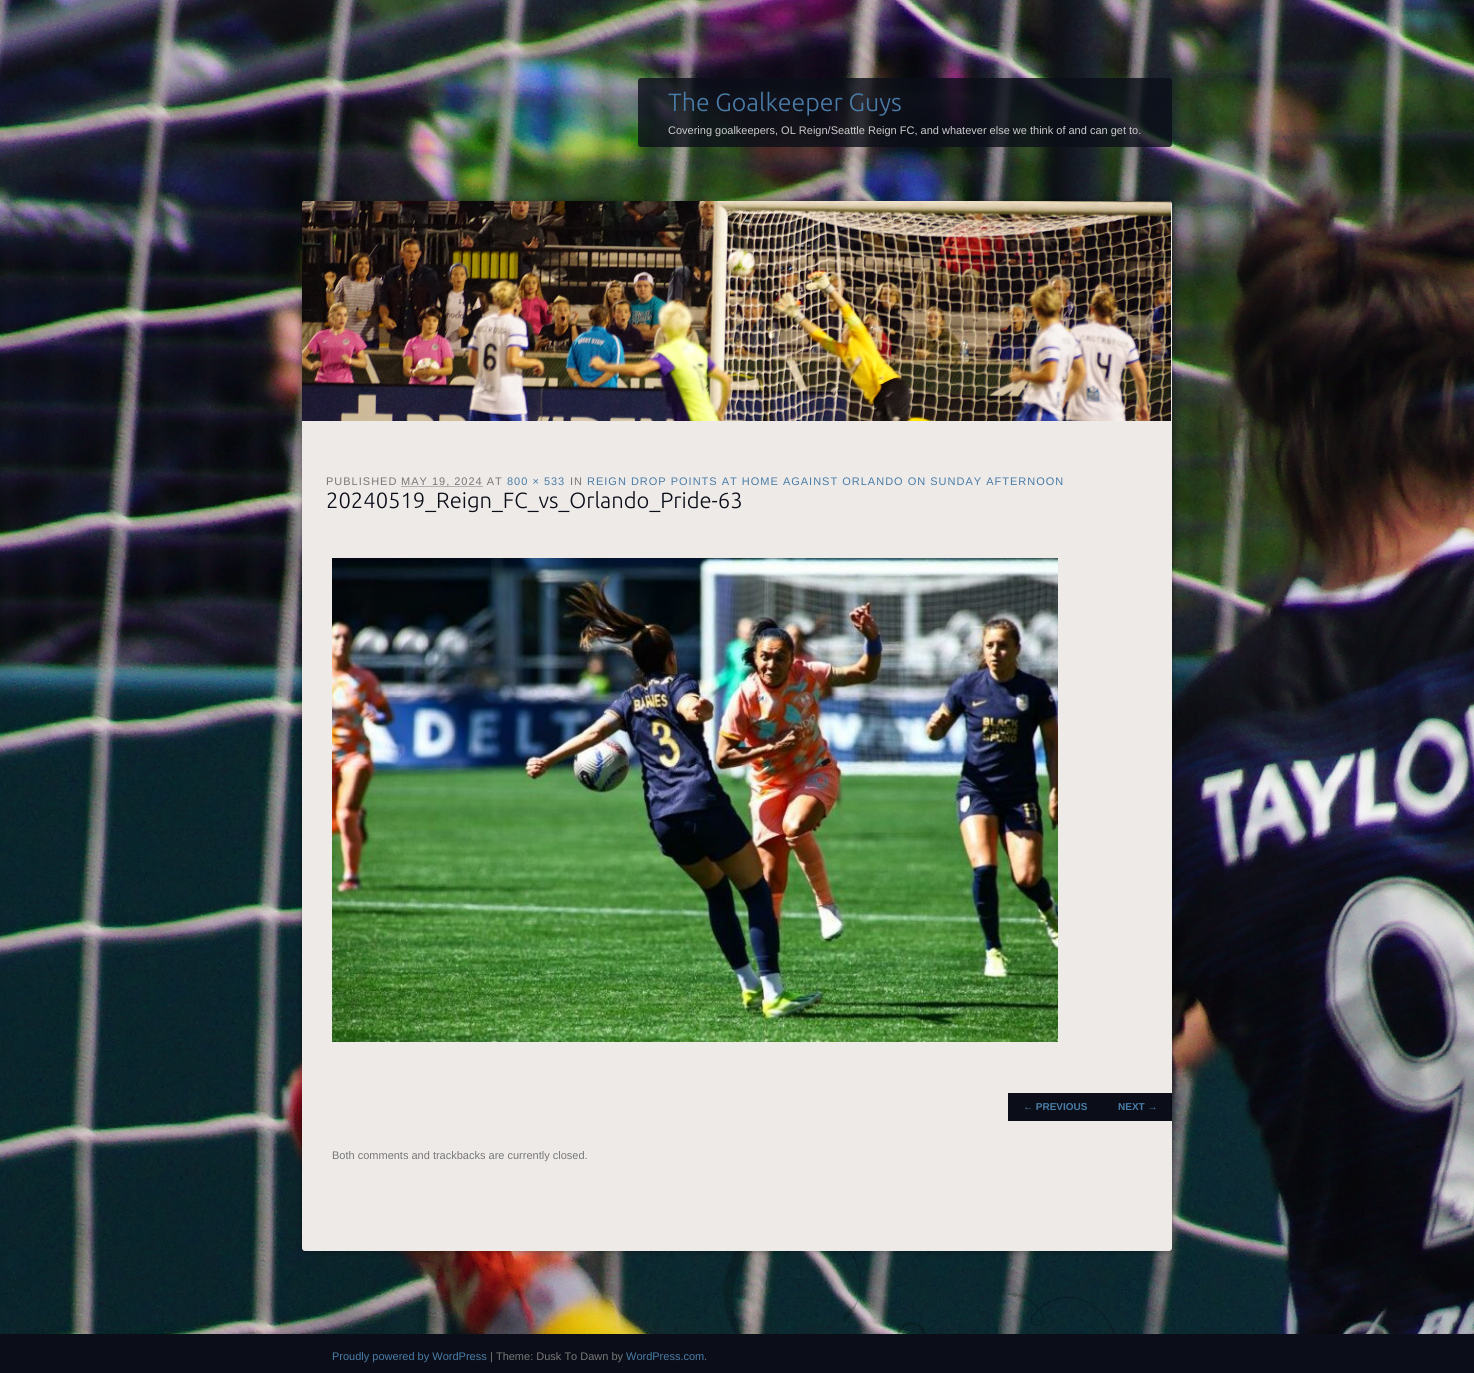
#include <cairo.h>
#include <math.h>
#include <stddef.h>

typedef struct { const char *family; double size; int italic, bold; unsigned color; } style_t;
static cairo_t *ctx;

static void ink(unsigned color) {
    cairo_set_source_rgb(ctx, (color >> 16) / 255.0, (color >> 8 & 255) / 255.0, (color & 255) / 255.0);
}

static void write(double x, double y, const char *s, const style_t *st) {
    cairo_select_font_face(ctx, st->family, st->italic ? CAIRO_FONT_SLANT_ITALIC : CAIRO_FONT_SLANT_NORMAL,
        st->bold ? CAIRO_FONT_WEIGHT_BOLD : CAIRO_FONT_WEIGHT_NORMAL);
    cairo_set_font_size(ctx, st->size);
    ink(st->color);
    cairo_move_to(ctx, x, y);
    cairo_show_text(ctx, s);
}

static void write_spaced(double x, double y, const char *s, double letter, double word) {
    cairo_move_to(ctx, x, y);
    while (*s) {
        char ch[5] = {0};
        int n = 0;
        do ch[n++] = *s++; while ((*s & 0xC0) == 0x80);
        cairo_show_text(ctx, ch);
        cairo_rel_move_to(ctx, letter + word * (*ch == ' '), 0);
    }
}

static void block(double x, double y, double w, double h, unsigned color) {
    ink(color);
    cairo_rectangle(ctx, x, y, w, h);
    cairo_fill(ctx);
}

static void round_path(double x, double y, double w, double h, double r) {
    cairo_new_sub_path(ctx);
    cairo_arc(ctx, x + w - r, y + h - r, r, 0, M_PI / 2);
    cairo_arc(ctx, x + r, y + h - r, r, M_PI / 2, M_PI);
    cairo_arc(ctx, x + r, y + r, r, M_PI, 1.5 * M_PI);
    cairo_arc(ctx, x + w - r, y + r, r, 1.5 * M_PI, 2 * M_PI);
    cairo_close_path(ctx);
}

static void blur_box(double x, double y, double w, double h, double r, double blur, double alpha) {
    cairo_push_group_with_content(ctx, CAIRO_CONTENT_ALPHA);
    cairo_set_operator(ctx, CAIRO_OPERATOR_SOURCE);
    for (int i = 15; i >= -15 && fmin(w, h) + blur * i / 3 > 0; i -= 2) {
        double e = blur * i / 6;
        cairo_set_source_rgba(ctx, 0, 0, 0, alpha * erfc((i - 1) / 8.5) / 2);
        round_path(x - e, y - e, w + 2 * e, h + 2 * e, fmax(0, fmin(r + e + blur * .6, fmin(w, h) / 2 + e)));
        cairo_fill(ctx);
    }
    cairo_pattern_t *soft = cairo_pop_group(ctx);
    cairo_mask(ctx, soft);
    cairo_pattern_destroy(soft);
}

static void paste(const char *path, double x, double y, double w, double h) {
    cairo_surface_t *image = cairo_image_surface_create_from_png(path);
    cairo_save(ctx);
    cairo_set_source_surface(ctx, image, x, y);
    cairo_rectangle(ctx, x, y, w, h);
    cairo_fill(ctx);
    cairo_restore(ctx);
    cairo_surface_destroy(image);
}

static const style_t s1 = {"Ubuntu Light", 25, 0, 0, 0x497ca7};
static const style_t s2 = {"Liberation Sans", 11, 0, 0, 0xcccccc};
static const style_t s3 = {"Ubuntu Light", 22, 0, 0, 0x0b0e18};
static const style_t s4 = {"Liberation Sans", 10, 0, 1, 0x497ca7};
static const style_t s5 = {"Liberation Sans", 11, 0, 0, 0x777777};
static const style_t s6 = {"Liberation Sans", 11, 0, 0, 0x497ca7};

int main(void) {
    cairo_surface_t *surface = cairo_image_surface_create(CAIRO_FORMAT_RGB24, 1474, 1373);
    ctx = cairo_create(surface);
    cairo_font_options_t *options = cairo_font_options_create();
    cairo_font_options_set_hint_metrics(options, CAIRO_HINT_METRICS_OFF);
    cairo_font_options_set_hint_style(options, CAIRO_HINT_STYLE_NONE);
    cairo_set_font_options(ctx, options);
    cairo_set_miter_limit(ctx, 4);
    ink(0xffffff);
    cairo_paint(ctx);
    paste("pic1.png", 0, 0, 1474, 1334);
    paste("pic2.png", 723, 1251, 393, 83);
    cairo_set_source_rgba(ctx, 0.043, 0.055, 0.094, 0.8);
    round_path(638, 78, 534, 69, 3);
    cairo_fill(ctx);
    write(668, 111, "The Goalkeeper Guys", &s1);
    write(668, 134, "Covering goalkeepers, OL Reign/Seattle Reign FC, and whatever else we think of and can get to.", &s2);
    ink(0x000000);
    blur_box(302, 201, 870, 1050, 3, 3, 0.4);
    ink(0xeeeae8);
    round_path(302, 201, 870, 1050, 3);
    cairo_fill(ctx);
    paste("pic3.png", 302, 201, 869, 220);
    ink(0x777777);
    write_spaced(326, 485, "PUBLISHED", 1, 0);
    cairo_new_path(ctx);
    cairo_move_to(ctx, 401.5, 486.5);
    cairo_line_to(ctx, 483, 486.5);
    cairo_set_line_width(ctx, 1);
    cairo_set_dash(ctx, (double[]){1, 1}, 2, 0);
    cairo_stroke(ctx);
    write_spaced(401, 485, "MAY 19, 2024 AT", 1, 0);
    ink(0x497ca7);
    write_spaced(507, 485, "800 × 533", 1, 0);
    ink(0x777777);
    write_spaced(570, 485, "IN", 1, 0);
    ink(0x497ca7);
    write_spaced(587, 485, "REIGN DROP POINTS AT HOME AGAINST ORLANDO ON SUNDAY AFTERNOON", 1, 0);
    write(326, 508, "20240519_Reign_FC_vs_Orlando_Pride-63", &s3);
    paste("pic4.png", 332, 558, 726, 484);
    block(1008, 1093, 164, 28, 0x0b0e18);
    write(1023, 1110, "← PREVIOUS", &s4);
    write(1118, 1110, "NEXT →", &s4);
    write(332, 1159, "Both comments and trackbacks are currently closed.", &s5);
    block(0, 1334, 1474, 39, 0x0b0e18);
    write(332, 1360, "Proudly powered by WordPress", &s6);
    write(490, 1360, "| Theme: Dusk To Dawn by", &s5);
    write(626, 1360, "WordPress.com", &s6);
    write(704, 1360, ".", &s5);
    cairo_surface_write_to_png(surface, "screenshot.png");
    cairo_font_options_destroy(options);
    cairo_destroy(ctx);
    cairo_surface_destroy(surface);
    return 0;
}
